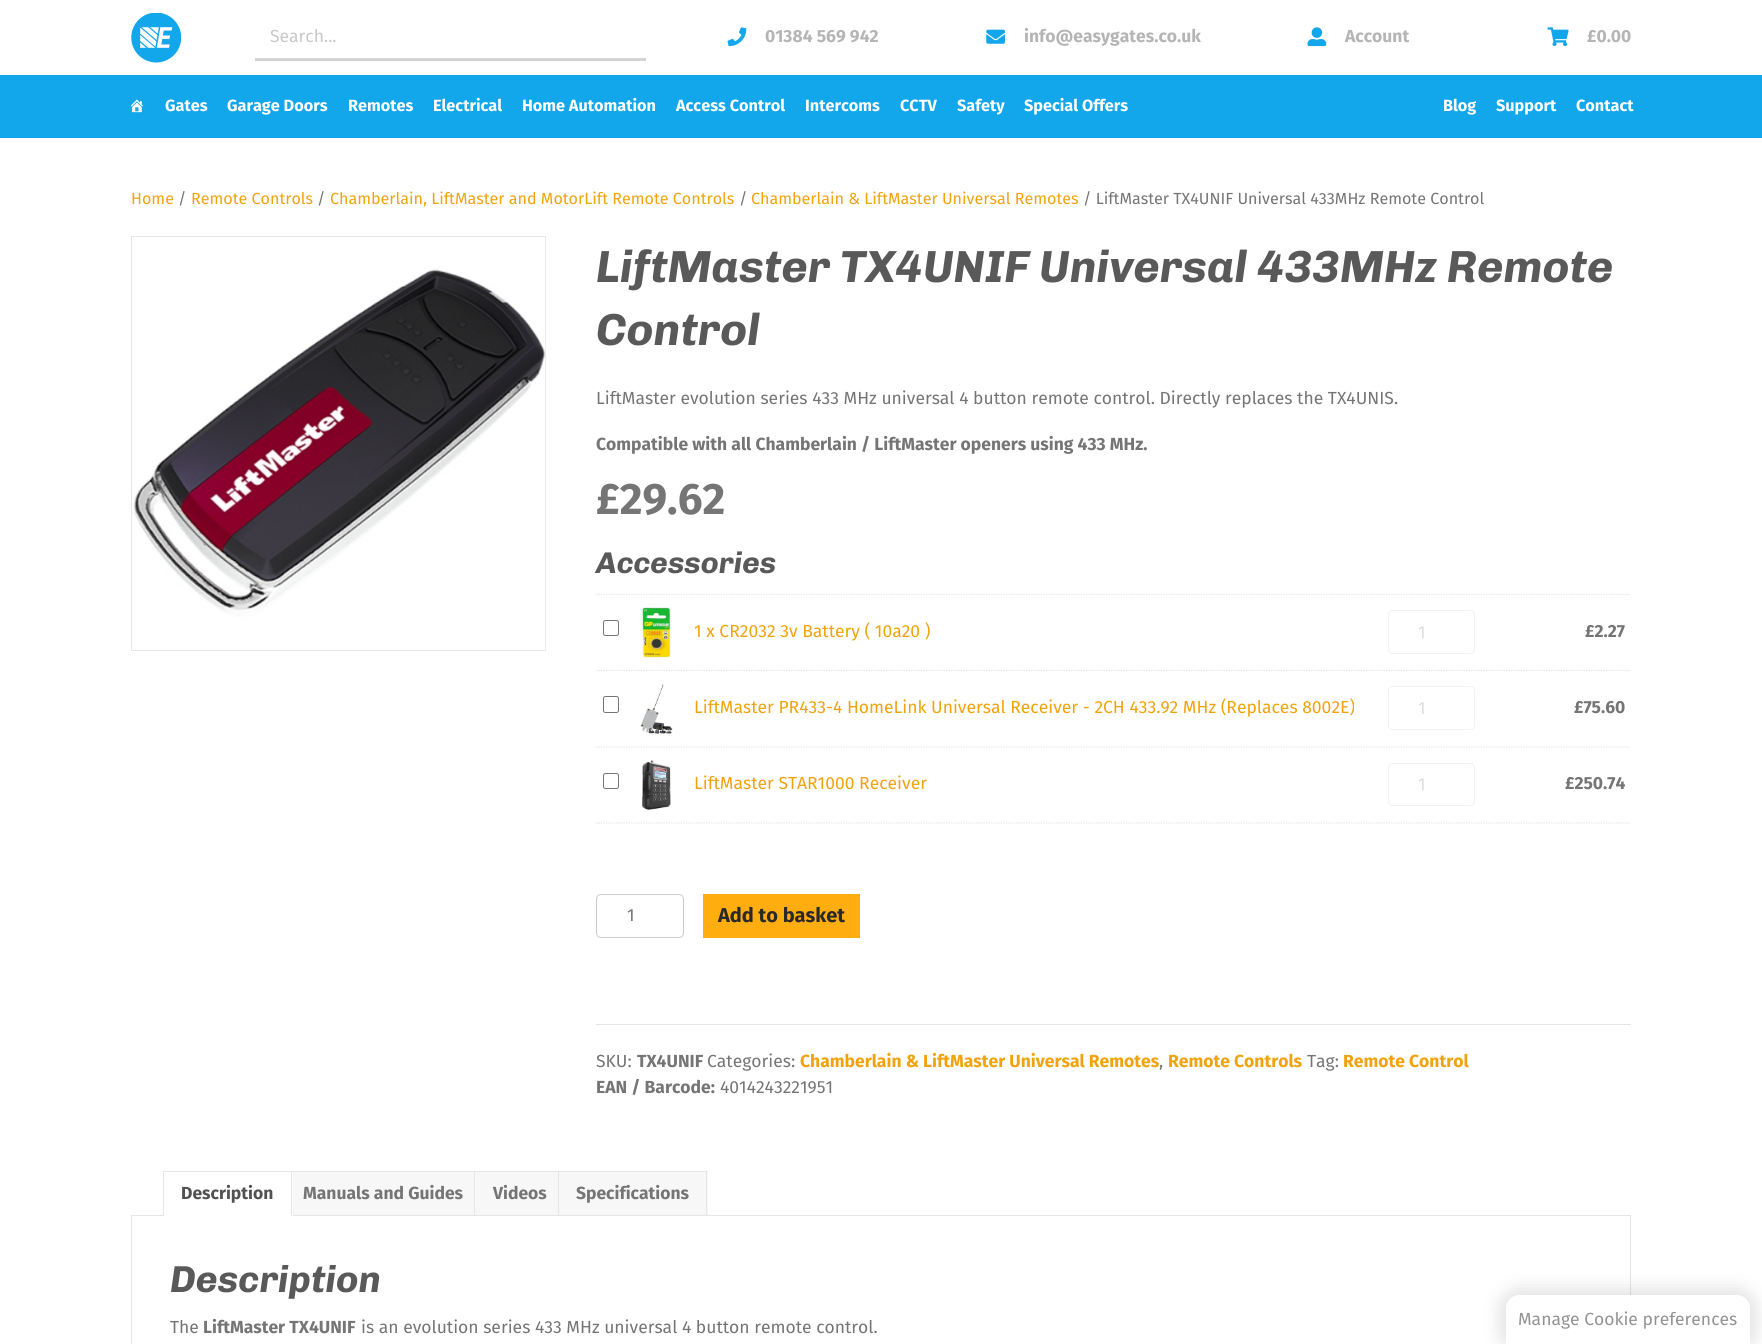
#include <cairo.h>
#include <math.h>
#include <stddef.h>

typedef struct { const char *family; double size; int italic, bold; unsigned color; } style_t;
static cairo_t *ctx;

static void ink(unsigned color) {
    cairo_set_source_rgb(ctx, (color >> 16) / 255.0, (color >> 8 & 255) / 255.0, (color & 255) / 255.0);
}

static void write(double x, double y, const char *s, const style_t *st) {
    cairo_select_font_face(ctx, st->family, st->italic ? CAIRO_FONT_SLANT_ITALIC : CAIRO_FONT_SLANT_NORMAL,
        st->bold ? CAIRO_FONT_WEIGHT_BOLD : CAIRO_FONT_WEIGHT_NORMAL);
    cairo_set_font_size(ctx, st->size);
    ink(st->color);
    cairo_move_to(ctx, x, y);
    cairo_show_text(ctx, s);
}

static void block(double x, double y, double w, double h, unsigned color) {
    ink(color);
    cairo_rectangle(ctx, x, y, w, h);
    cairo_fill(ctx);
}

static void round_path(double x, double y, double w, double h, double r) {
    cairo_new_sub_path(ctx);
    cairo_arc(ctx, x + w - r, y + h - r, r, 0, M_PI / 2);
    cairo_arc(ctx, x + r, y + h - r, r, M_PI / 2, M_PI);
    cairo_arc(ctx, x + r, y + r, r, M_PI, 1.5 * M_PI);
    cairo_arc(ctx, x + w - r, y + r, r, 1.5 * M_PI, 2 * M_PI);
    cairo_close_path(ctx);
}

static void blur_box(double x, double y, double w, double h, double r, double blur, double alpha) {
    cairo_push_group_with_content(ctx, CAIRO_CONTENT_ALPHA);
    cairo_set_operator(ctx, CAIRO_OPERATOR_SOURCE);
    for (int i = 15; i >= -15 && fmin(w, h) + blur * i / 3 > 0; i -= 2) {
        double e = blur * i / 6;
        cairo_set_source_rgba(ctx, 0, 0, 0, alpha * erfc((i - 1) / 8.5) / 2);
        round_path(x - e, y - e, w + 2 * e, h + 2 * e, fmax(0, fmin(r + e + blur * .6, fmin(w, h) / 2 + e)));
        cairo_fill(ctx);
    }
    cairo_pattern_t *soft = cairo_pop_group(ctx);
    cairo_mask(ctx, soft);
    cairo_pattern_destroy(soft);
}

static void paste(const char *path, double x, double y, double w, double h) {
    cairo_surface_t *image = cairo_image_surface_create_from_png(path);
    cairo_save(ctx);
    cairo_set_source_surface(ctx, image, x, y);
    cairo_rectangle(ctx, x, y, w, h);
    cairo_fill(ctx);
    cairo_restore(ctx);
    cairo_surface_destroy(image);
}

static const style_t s1 = {"Fira Sans", 17.5, 0, 0, 0xc8c8c8};
static const style_t s2 = {"Fira Sans", 17.5, 0, 1, 0xb5b5b5};
static const style_t s3 = {"Fira Sans", 16.25, 0, 1, 0xffffff};
static const style_t s4 = {"Fira Sans", 16.1, 0, 0, 0xf0a30e};
static const style_t s5 = {"Fira Sans", 16.1, 0, 0, 0x757575};
static const style_t s6 = {"Chivo Medium", 45, 1, 0, 0x595959};
static const style_t s7 = {"Fira Sans", 17.5, 0, 0, 0x757575};
static const style_t s8 = {"Fira Sans", 17.5, 0, 1, 0x757575};
static const style_t s9 = {"Fira Sans", 44, 0, 1, 0x757575};
static const style_t s10 = {"Chivo Medium", 30, 1, 0, 0x595959};
static const style_t s11 = {"Fira Sans", 17.5, 0, 0, 0xf0a30e};
static const style_t s12 = {"Fira Sans", 17.5, 0, 0, 0xdddddd};
static const style_t s13 = {"Fira Sans", 20, 0, 1, 0x292929};
static const style_t s14 = {"Fira Sans", 17.5, 0, 1, 0xf0a30e};
static const style_t s15 = {"Fira Sans", 17.5, 0, 1, 0x515151};
static const style_t s16 = {"Chivo Medium", 37.5, 1, 0, 0x595959};
static const style_t s17 = {"Fira Sans", 17.5, 0, 0, 0x939393};

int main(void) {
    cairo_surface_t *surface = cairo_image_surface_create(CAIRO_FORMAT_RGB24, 1762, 1344);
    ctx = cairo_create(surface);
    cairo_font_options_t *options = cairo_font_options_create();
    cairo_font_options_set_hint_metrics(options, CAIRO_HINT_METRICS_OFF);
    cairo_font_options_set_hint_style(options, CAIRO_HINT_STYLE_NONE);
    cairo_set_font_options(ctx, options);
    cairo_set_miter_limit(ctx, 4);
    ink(0xffffff);
    cairo_paint(ctx);
    paste("pic1.png", 131, 13, 50, 50);
    block(255, 58, 391, 3, 0xd3d3d3);
    write(270, 42, "Search...", &s1);
    paste("pic2.png", 727, 27, 20, 20);
    write(765, 42, "01384 569 942", &s2);
    paste("pic3.png", 986, 29, 19, 15);
    write(1024, 42, "info@easygates.co.uk", &s2);
    paste("pic4.png", 1307, 27, 20, 20);
    write(1345, 42, "Account", &s2);
    paste("pic5.png", 1547, 27, 22, 20);
    write(1587, 42, "£0.00", &s2);
    block(0, 75, 1762, 63, 0x12a6eb);
    paste("pic6.png", 130, 99, 13, 14);
    write(165, 111, "Gates", &s3);
    write(227, 111, "Garage Doors", &s3);
    write(348, 111, "Remotes", &s3);
    write(433, 111, "Electrical", &s3);
    write(522, 111, "Home Automation", &s3);
    write(676, 111, "Access Control", &s3);
    write(805, 111, "Intercoms", &s3);
    write(900, 111, "CCTV", &s3);
    write(957, 111, "Safety", &s3);
    write(1024, 111, "Special Offers", &s3);
    write(1443, 111, "Blog", &s3);
    write(1496, 111, "Support", &s3);
    write(1576, 111, "Contact", &s3);
    write(131, 204, "Home", &s4);
    write(178, 204, "/", &s5);
    write(191, 204, "Remote Controls", &s4);
    write(317, 204, "/", &s5);
    write(330, 204, "Chamberlain, LiftMaster and MotorLift Remote Controls", &s4);
    write(739, 204, "/", &s5);
    write(751, 204, "Chamberlain & LiftMaster Universal Remotes", &s4);
    write(1083, 204, "/ LiftMaster TX4UNIF Universal 433MHz Remote Control", &s5);
    cairo_rectangle(ctx, 131.5, 236.5, 414, 414);
    ink(0xe6e6e6);
    cairo_set_line_width(ctx, 1);
    cairo_stroke(ctx);
    paste("pic7.png", 133, 238, 413, 412);
    write(596, 282, "LiftMaster TX4UNIF Universal 433MHz Remote", &s6);
    write(596, 345, "Control", &s6);
    write(596, 404, "LiftMaster evolution series 433 MHz universal 4 button remote control. Directly replaces the TX4UNIS.", &s7);
    write(596, 450, "Compatible with all Chamberlain / LiftMaster openers using 433 MHz.", &s8);
    write(596, 514, "£29.62", &s9);
    write(596, 573, "Accessories", &s10);
    cairo_new_path(ctx);
    cairo_move_to(ctx, 596, 594.5);
    cairo_line_to(ctx, 1631, 594.5);
    ink(0xe5e5e5);
    cairo_set_line_width(ctx, 1.2);
    cairo_set_dash(ctx, (double[]){1.25, 1.25}, 2, 0);
    cairo_stroke(ctx);
    cairo_new_path(ctx);
    cairo_move_to(ctx, 596, 670.5);
    cairo_line_to(ctx, 1631, 670.5);
    cairo_stroke(ctx);
    round_path(603.5, 620.5, 15, 15, 2);
    ink(0x767676);
    cairo_set_line_width(ctx, 1);
    cairo_set_dash(ctx, NULL, 0, 0);
    cairo_stroke(ctx);
    paste("pic8.png", 642, 607, 29, 51);
    write(694, 637, "1 x CR2032 3v Battery ( 10a20 )", &s11);
    round_path(1388.5, 610.5, 86, 43, 4.5);
    ink(0xf2f2f2);
    cairo_stroke(ctx);
    write(1418, 638, "1", &s12);
    write(1585, 637, "£2.27", &s8);
    cairo_new_path(ctx);
    cairo_move_to(ctx, 596, 747);
    cairo_line_to(ctx, 1631, 747);
    ink(0xe5e5e5);
    cairo_set_line_width(ctx, 1.2);
    cairo_set_dash(ctx, (double[]){1.25, 1.25}, 2, 0);
    cairo_stroke(ctx);
    round_path(603.5, 696.5, 15, 16, 2);
    ink(0x767676);
    cairo_set_line_width(ctx, 1);
    cairo_set_dash(ctx, NULL, 0, 0);
    cairo_stroke(ctx);
    paste("pic9.png", 640, 684, 33, 50);
    write(694, 713, "LiftMaster PR433-4 HomeLink Universal Receiver - 2CH 433.92 MHz (Replaces 8002E)", &s11);
    round_path(1388.5, 686.5, 86, 43, 4.5);
    ink(0xf2f2f2);
    cairo_stroke(ctx);
    write(1418, 714, "1", &s12);
    write(1574, 713, "£75.60", &s8);
    cairo_new_path(ctx);
    cairo_move_to(ctx, 596, 823);
    cairo_line_to(ctx, 1631, 823);
    ink(0xe5e5e5);
    cairo_set_line_width(ctx, 1.2);
    cairo_set_dash(ctx, (double[]){1.25, 1.25}, 2, 0);
    cairo_stroke(ctx);
    round_path(603.5, 773.5, 15, 15, 2);
    ink(0x767676);
    cairo_set_line_width(ctx, 1);
    cairo_set_dash(ctx, NULL, 0, 0);
    cairo_stroke(ctx);
    paste("pic10.png", 642, 760, 29, 50);
    write(694, 789, "LiftMaster STAR1000 Receiver", &s11);
    round_path(1388.5, 763.5, 86, 42, 4.5);
    ink(0xf2f2f2);
    cairo_stroke(ctx);
    write(1418, 790, "1", &s12);
    write(1565, 789, "£250.74", &s8);
    round_path(596.5, 894.5, 87, 43, 4.5);
    ink(0xcccccc);
    cairo_stroke(ctx);
    write(627, 921, "1", &s7);
    block(703, 894, 157, 44, 0xffad0f);
    write(718, 922, "Add to basket", &s13);
    block(596, 1024, 1035, 1, 0xe5e5e5);
    write(596, 1067, "SKU:", &s7);
    write(637, 1067, "TX4UNIF", &s8);
    write(707, 1067, "Categories:", &s7);
    write(800, 1067, "Chamberlain & LiftMaster Universal Remotes", &s14);
    write(1159, 1067, ",", &s7);
    write(1168, 1067, "Remote Controls", &s14);
    write(1307, 1067, "Tag:", &s7);
    write(1343, 1067, "Remote Control", &s14);
    write(596, 1093, "EAN / Barcode:", &s8);
    write(720, 1093, "4014243221951", &s7);
    block(163, 1171, 545, 1, 0xe6e6e6);
    block(474, 1171, 1, 45, 0xe6e6e6);
    block(559, 1172, 149, 43, 0xf7f7f7);
    block(706, 1171, 1, 45, 0xe6e6e6);
    block(558, 1171, 1, 45, 0xe6e6e6);
    block(131, 1215, 1500, 1, 0xe6e6e6);
    block(164, 1215, 129, 1, 0xffffff);
    block(291, 1171, 1, 45, 0xe6e6e6);
    block(163, 1171, 1, 45, 0xe6e6e6);
    write(181, 1199, "Description", &s15);
    block(293, 1172, 181, 43, 0xf7f7f7);
    write(303, 1199, "Manuals and Guides", &s8);
    block(475, 1172, 83, 43, 0xf7f7f7);
    write(493, 1199, "Videos", &s8);
    write(576, 1199, "Specifications", &s8);
    block(1630, 1216, 1, 79, 0xe6e6e6);
    block(131, 1216, 1, 128, 0xe6e6e6);
    write(170, 1292, "Description", &s16);
    write(170, 1333, "The", &s7);
    write(203, 1333, "LiftMaster TX4UNIF", &s8);
    write(361, 1333, "is an evolution series 433 MHz universal 4 button remote control.", &s7);
    ink(0x000000);
    blur_box(1500, 1289, 256, 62, 19, 9.5, 0.12);
    ink(0xffffff);
    cairo_new_path(ctx);
    cairo_move_to(ctx, 1519, 1295);
    cairo_line_to(ctx, 1737, 1295);
    cairo_curve_to(ctx, 1744, 1295, 1750, 1301, 1750, 1308);
    cairo_line_to(ctx, 1750, 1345);
    cairo_line_to(ctx, 1506, 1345);
    cairo_line_to(ctx, 1506, 1308);
    cairo_curve_to(ctx, 1506, 1301, 1512, 1295, 1519, 1295);
    cairo_close_path(ctx);
    cairo_fill(ctx);
    write(1518, 1325, "Manage Cookie preferences", &s17);
    cairo_surface_write_to_png(surface, "screenshot.png");
    cairo_font_options_destroy(options);
    cairo_destroy(ctx);
    cairo_surface_destroy(surface);
    return 0;
}
